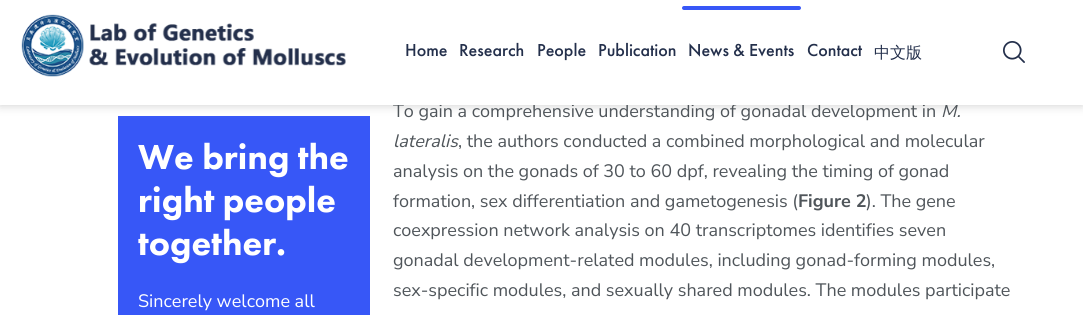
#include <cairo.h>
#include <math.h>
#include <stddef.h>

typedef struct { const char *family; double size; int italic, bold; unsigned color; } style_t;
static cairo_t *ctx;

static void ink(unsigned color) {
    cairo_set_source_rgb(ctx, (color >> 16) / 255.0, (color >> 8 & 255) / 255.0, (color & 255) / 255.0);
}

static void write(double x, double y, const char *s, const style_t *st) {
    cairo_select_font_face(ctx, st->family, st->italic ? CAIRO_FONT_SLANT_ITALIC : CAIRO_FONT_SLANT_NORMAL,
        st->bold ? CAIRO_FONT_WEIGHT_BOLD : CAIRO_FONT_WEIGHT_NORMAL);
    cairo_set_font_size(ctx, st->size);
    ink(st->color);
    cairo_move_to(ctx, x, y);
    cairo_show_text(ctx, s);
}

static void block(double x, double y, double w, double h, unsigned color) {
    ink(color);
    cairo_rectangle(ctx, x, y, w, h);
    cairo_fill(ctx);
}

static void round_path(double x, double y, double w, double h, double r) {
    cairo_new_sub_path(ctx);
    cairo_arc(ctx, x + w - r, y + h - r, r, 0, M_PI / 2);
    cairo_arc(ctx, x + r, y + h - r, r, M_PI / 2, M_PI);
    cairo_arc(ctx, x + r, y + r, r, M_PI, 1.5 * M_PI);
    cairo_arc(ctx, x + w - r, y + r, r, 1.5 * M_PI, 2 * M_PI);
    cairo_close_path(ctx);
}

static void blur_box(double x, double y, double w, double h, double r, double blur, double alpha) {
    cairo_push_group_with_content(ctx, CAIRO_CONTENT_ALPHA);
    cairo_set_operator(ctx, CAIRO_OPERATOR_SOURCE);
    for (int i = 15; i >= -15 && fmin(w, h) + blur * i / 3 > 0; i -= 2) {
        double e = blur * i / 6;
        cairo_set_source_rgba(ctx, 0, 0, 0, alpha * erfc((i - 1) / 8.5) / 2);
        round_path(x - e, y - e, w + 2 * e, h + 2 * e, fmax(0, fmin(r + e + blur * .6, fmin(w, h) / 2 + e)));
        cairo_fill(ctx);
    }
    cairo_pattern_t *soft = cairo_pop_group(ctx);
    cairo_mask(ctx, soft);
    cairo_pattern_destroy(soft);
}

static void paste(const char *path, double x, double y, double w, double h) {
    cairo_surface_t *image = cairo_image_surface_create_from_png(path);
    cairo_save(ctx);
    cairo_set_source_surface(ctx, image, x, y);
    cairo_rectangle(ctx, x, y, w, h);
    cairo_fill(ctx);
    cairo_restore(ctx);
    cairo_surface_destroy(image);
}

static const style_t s1 = {"Nunito Sans", 18, 0, 0, 0x4f555a};
static const style_t s2 = {"Nunito Sans", 18, 1, 0, 0x4f555a};
static const style_t s3 = {"Futura PT Medium", 18, 0, 0, 0x232f4b};
static const style_t s4 = {"WenQuanYi Zen Hei Medium", 16, 0, 0, 0x232f4b};
static const style_t s5 = {"Futura PT Black", 36, 0, 0, 0xffffff};
static const style_t s6 = {"Nunito Sans", 18, 0, 0, 0xffffff};
static const style_t s7 = {"Nunito Sans", 18, 0, 1, 0x4f555a};

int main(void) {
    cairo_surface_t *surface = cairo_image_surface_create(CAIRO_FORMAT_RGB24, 1083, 315);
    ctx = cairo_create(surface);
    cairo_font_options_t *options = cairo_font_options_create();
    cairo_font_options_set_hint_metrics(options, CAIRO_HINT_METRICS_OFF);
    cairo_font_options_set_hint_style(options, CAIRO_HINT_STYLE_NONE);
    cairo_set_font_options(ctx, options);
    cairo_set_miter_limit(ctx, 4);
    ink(0xffffff);
    cairo_paint(ctx);
    block(118, 116, 252, 199, 0x3757f7);
    ink(0xcccccc);
    blur_box(0, 0, 1083, 105, 0, 5, 1);
    write(393, 117, "To gain a comprehensive understanding of gonadal development in", &s1);
    write(941, 117, "M.", &s2);
    block(0, 0, 1083, 105, 0xffffff);
    paste("pic1.png", 21, 14, 325, 63);
    write(405, 56, "Home", &s3);
    write(459, 56, "Research", &s3);
    write(537, 56, "People", &s3);
    write(598, 56, "Publication", &s3);
    ink(0x3757f7);
    round_path(682, 6, 119, 4, 2);
    cairo_fill(ctx);
    write(688, 56, "News & Events", &s3);
    write(807, 56, "Contact", &s3);
    write(874, 58, "中文版", &s4);
    paste("pic2.png", 1003, 41, 22, 22);
    write(138, 169, "We bring the", &s5);
    write(138, 212, "right people", &s5);
    write(138, 255, "together.", &s5);
    write(138, 307, "Sincerely welcome all", &s6);
    write(393, 147, "lateralis", &s2);
    write(458, 147, ", the authors conducted a combined morphological and molecular", &s1);
    write(393, 177, "analysis on the gonads of 30 to 60 dpf, revealing the timing of gonad", &s1);
    write(393, 207, "formation, sex differentiation and gametogenesis (", &s1);
    write(798, 207, "Figure 2", &s7);
    write(866, 207, "). The gene", &s1);
    write(393, 236, "coexpression network analysis on 40 transcriptomes identifies seven", &s1);
    write(393, 266, "gonadal development-related modules, including gonad-forming modules,", &s1);
    write(393, 296, "sex-specific modules, and sexually shared modules. The modules participate", &s1);
    cairo_surface_write_to_png(surface, "screenshot.png");
    cairo_font_options_destroy(options);
    cairo_destroy(ctx);
    cairo_surface_destroy(surface);
    return 0;
}
